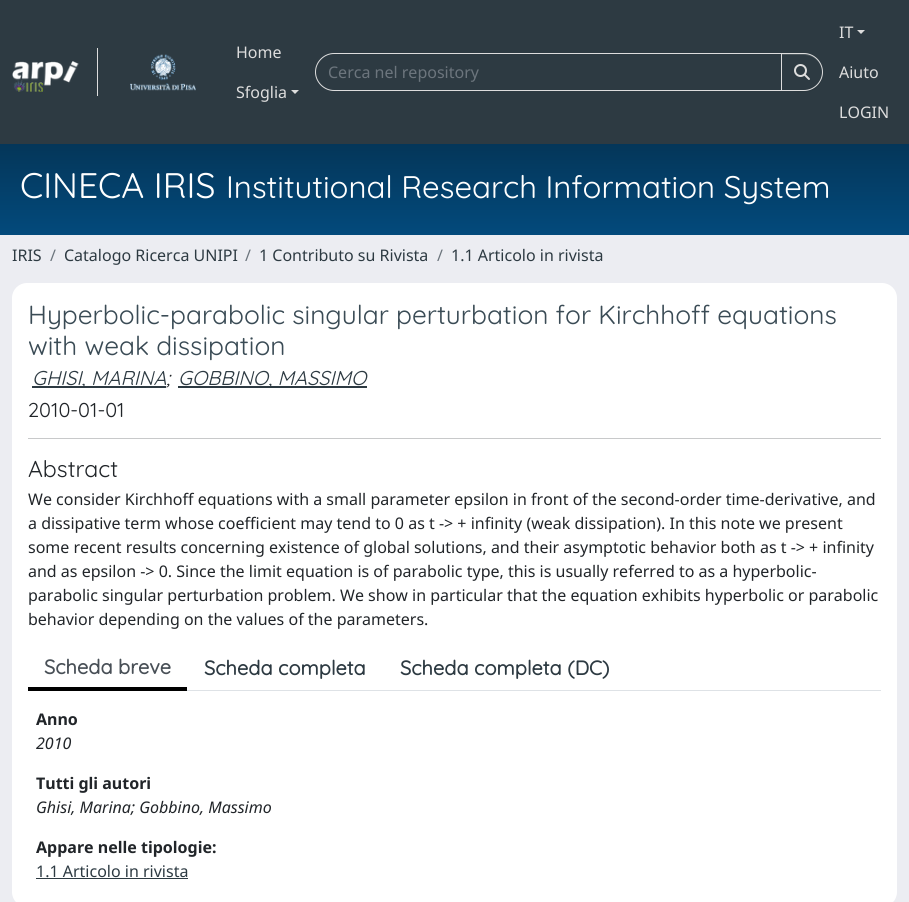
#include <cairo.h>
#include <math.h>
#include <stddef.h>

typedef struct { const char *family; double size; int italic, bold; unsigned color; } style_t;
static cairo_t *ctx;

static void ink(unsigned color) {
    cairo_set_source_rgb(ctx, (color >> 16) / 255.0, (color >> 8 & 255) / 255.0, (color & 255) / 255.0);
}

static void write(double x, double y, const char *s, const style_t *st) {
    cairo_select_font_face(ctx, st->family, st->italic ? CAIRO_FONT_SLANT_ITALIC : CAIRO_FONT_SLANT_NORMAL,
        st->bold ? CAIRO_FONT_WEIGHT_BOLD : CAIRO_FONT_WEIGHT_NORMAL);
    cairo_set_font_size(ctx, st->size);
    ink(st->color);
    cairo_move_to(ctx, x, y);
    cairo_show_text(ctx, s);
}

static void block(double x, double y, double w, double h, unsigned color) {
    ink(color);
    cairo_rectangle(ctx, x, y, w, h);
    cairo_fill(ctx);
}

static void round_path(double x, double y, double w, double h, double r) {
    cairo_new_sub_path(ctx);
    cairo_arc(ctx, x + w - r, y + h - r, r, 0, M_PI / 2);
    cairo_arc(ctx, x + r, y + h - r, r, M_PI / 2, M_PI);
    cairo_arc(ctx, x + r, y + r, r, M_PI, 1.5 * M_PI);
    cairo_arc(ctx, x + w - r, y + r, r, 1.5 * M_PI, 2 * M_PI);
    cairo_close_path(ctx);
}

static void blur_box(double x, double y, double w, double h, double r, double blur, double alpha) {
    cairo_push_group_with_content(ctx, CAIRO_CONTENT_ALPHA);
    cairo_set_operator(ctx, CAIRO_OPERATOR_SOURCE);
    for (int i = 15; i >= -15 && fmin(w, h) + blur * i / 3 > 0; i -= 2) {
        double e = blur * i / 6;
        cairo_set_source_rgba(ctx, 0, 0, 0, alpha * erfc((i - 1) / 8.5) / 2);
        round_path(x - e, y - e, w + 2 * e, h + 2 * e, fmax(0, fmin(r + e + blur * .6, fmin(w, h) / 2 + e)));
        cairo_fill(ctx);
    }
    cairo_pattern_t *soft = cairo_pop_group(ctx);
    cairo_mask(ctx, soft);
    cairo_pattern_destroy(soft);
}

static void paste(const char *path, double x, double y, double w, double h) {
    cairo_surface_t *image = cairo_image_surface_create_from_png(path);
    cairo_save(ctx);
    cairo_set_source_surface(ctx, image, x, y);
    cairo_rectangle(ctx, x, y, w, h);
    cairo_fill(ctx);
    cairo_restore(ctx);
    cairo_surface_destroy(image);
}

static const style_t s1 = {"Noto Sans", 16, 0, 0, 0xdddddd};
static const style_t s2 = {"Noto Sans", 16, 0, 0, 0x6c757d};
static const style_t s3 = {"Quicksand", 35.5, 0, 0, 0xffffff};
static const style_t s4 = {"Quicksand", 31.2, 0, 0, 0xffffff};
static const style_t s5 = {"Noto Sans", 16, 0, 0, 0x2d3a42};
static const style_t s6 = {"Quicksand", 26.25, 0, 0, 0x3a4b55};
static const style_t s7 = {"Quicksand", 20, 1, 0, 0x2d3a42};
static const style_t s8 = {"Quicksand", 20, 1, 0, 0x212529};
static const style_t s9 = {"Quicksand", 20, 0, 0, 0x212529};
static const style_t s10 = {"Quicksand", 23, 0, 0, 0x212529};
static const style_t s11 = {"Noto Sans", 16, 0, 0, 0x212529};
static const style_t s12 = {"Quicksand", 20, 0, 1, 0x495057};
static const style_t s13 = {"Quicksand", 20, 0, 1, 0x2d3a42};
static const style_t s14 = {"Noto Sans", 16, 0, 1, 0x212529};
static const style_t s15 = {"Noto Sans", 16, 1, 0, 0x212529};

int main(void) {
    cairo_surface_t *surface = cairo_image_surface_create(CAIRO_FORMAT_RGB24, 909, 902);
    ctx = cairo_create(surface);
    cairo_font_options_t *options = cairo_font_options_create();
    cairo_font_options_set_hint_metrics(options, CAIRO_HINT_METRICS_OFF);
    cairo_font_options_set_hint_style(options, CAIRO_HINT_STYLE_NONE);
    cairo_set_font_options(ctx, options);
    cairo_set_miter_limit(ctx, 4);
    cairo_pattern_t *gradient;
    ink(0xecedf2);
    cairo_paint(ctx);
    block(0, 0, 909, 144, 0x2d3a42);
    block(97, 48, 1, 48, 0xdddddd);
    paste("pic1.png", 12, 61, 67, 31);
    paste("pic2.png", 130, 54, 66, 37);
    write(236, 58, "Home", &s1);
    write(236, 98, "Sfoglia", &s1);
    cairo_new_path(ctx);
    cairo_move_to(ctx, 291, 90);
    cairo_line_to(ctx, 299, 90);
    cairo_line_to(ctx, 295, 94);
    cairo_close_path(ctx);
    cairo_fill(ctx);
    cairo_new_path(ctx);
    cairo_move_to(ctx, 334, 53.5);
    cairo_line_to(ctx, 781.5, 53.5);
    cairo_line_to(ctx, 781.5, 90.5);
    cairo_line_to(ctx, 334, 90.5);
    cairo_curve_to(ctx, 324, 90.5, 315.5, 82, 315.5, 72);
    cairo_curve_to(ctx, 315.5, 62, 324, 53.5, 334, 53.5);
    cairo_close_path(ctx);
    cairo_set_line_width(ctx, 1);
    cairo_stroke(ctx);
    write(328, 78, "Cerca nel repository", &s2);
    ink(0x000000);
    blur_box(781, 54, 42, 38, 19, 0.5, 0.07);
    ink(0x2d3a42);
    cairo_new_path(ctx);
    cairo_move_to(ctx, 781, 53);
    cairo_line_to(ctx, 804, 53);
    cairo_curve_to(ctx, 814.5, 53, 823, 61.5, 823, 72);
    cairo_curve_to(ctx, 823, 82.5, 814.5, 91, 804, 91);
    cairo_line_to(ctx, 781, 91);
    cairo_close_path(ctx);
    cairo_fill(ctx);
    ink(0x4d585e);
    cairo_new_path(ctx);
    cairo_move_to(ctx, 782, 55);
    cairo_line_to(ctx, 804, 55);
    cairo_curve_to(ctx, 814, 55, 822, 63, 822, 72);
    cairo_curve_to(ctx, 822, 64, 816, 56, 808, 54);
    cairo_line_to(ctx, 782, 54);
    cairo_close_path(ctx);
    cairo_fill(ctx);
    cairo_new_path(ctx);
    cairo_move_to(ctx, 781.5, 53.5);
    cairo_line_to(ctx, 804, 53.5);
    cairo_curve_to(ctx, 814, 53.5, 822.5, 62, 822.5, 72);
    cairo_curve_to(ctx, 822.5, 82, 814, 90.5, 804, 90.5);
    cairo_line_to(ctx, 781.5, 90.5);
    cairo_close_path(ctx);
    ink(0xdddddd);
    cairo_stroke(ctx);
    paste("pic3.png", 794, 64, 16, 16);
    write(839, 38, "IT", &s1);
    cairo_new_path(ctx);
    cairo_move_to(ctx, 857, 30);
    cairo_line_to(ctx, 865, 30);
    cairo_line_to(ctx, 861, 34);
    cairo_close_path(ctx);
    cairo_fill(ctx);
    write(839, 78, "Aiuto", &s1);
    write(839, 118, "LOGIN", &s1);
    gradient = cairo_pattern_create_linear(455, 144, 455, 235);
    cairo_pattern_add_color_stop_rgba(gradient, 0, 0.016, 0.212, 0.349, 1);
    cairo_pattern_add_color_stop_rgba(gradient, 1, 0.012, 0.29, 0.486, 1);
    cairo_set_source(ctx, gradient);
    cairo_pattern_destroy(gradient);
    cairo_rectangle(ctx, 0, 144, 909, 91);
    cairo_fill(ctx);
    write(20, 198, "CINECA IRIS", &s3);
    write(226, 198, "Institutional Research Information System", &s4);
    write(12, 261, "IRIS", &s5);
    write(50, 261, "/", &s2);
    write(64, 261, "Catalogo Ricerca UNIPI", &s5);
    write(245, 261, "/", &s2);
    write(259, 261, "1 Contributo su Rivista", &s5);
    write(437, 261, "/", &s2);
    write(451, 261, "1.1 Articolo in rivista", &s5);
    ink(0xffffff);
    round_path(12, 283, 885, 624, 15);
    cairo_fill(ctx);
    write(28, 324, "Hyperbolic-parabolic singular perturbation for Kirchhoff equations", &s6);
    write(28, 355, "with weak dissipation", &s6);
    block(32, 386, 134, 2, 0x2d3a42);
    write(32, 385, "GHISI, MARINA", &s7);
    write(166, 385, ";", &s8);
    block(178, 386, 189, 2, 0x2d3a42);
    write(178, 385, "GOBBINO, MASSIMO", &s7);
    write(28, 417, "2010-01-01", &s9);
    block(28, 438, 853, 1, 0xc8c9ca);
    write(28, 477, "Abstract", &s10);
    write(28, 505, "We consider Kirchhoff equations with a small parameter epsilon in front of the second-order time-derivative, and", &s11);
    write(28, 529, "a dissipative term whose coefficient may tend to 0 as t -> + infinity (weak dissipation). In this note we present", &s11);
    write(28, 553, "some recent results concerning existence of global solutions, and their asymptotic behavior both as t -> + infinity", &s11);
    write(28, 577, "and as epsilon -> 0. Since the limit equation is of parabolic type, this is usually referred to as a hyperbolic-", &s11);
    write(28, 601, "parabolic singular perturbation problem. We show in particular that the equation exhibits hyperbolic or parabolic", &s11);
    write(28, 625, "behavior depending on the values of the parameters.", &s11);
    block(187, 690, 694, 1, 0xdee2e6);
    block(28, 687, 159, 4, 0x000000);
    write(44, 674, "Scheda breve", &s12);
    write(204, 675, "Scheda completa", &s13);
    write(400, 675, "Scheda completa (DC)", &s13);
    write(36, 725, "Anno", &s14);
    write(36, 749, "2010", &s15);
    write(36, 789, "Tutti gli autori", &s14);
    write(36, 813, "Ghisi, Marina; Gobbino, Massimo", &s15);
    write(36, 853, "Appare nelle tipologie:", &s14);
    write(36, 877, "1.1 Articolo in rivista", &s5);
    block(36, 878, 152, 1, 0x2d3a42);
    cairo_surface_write_to_png(surface, "screenshot.png");
    cairo_font_options_destroy(options);
    cairo_destroy(ctx);
    cairo_surface_destroy(surface);
    return 0;
}
